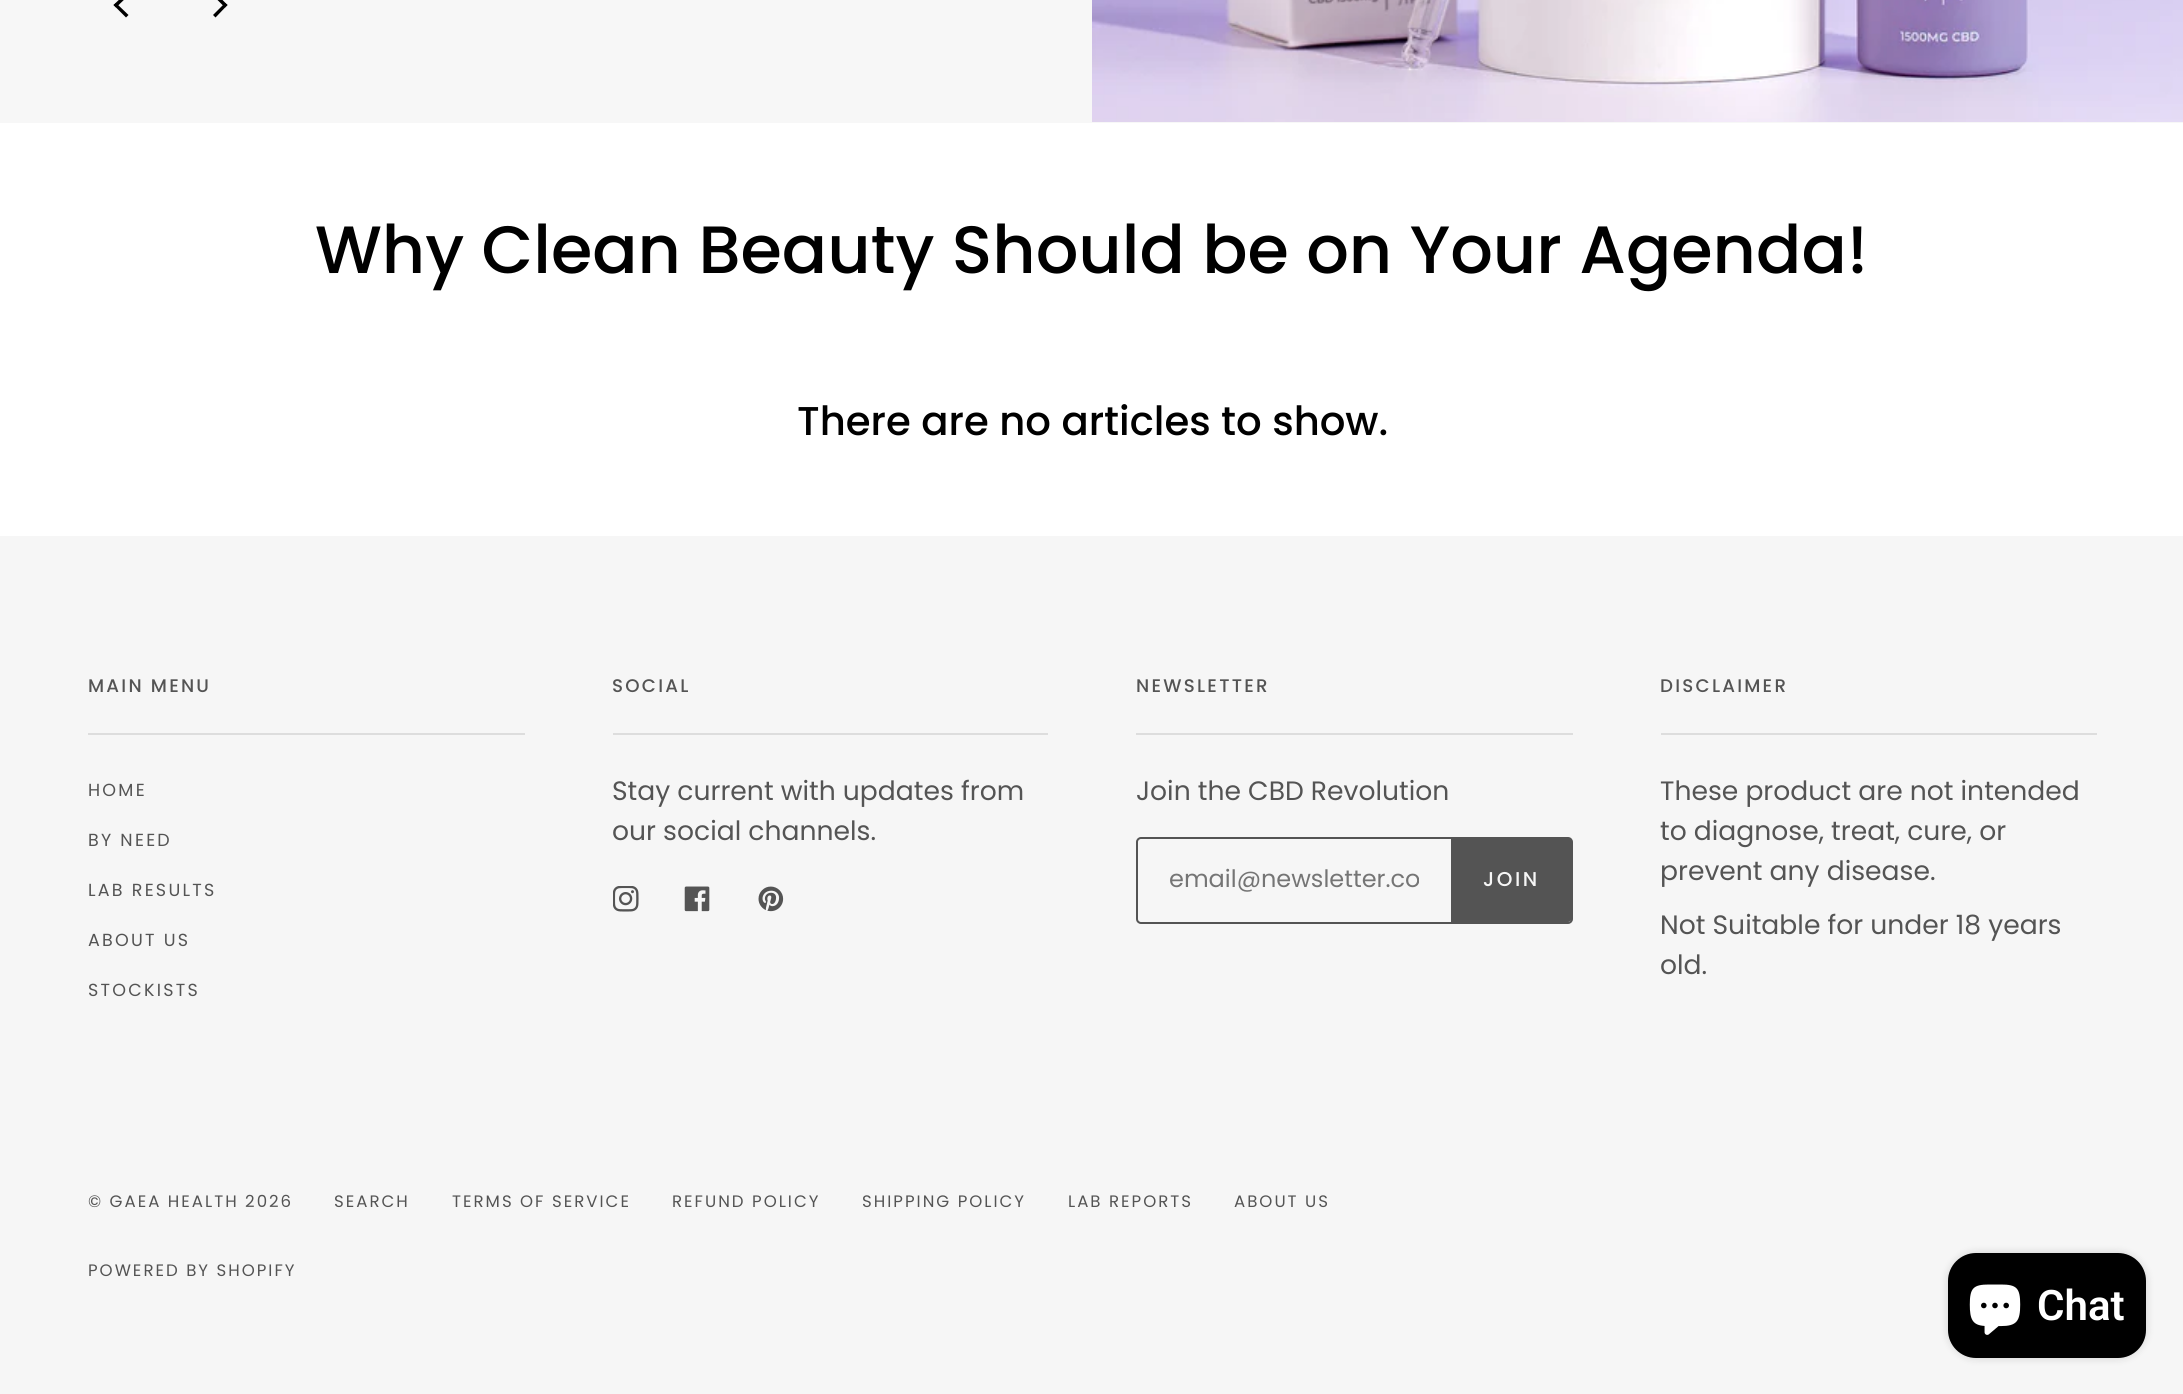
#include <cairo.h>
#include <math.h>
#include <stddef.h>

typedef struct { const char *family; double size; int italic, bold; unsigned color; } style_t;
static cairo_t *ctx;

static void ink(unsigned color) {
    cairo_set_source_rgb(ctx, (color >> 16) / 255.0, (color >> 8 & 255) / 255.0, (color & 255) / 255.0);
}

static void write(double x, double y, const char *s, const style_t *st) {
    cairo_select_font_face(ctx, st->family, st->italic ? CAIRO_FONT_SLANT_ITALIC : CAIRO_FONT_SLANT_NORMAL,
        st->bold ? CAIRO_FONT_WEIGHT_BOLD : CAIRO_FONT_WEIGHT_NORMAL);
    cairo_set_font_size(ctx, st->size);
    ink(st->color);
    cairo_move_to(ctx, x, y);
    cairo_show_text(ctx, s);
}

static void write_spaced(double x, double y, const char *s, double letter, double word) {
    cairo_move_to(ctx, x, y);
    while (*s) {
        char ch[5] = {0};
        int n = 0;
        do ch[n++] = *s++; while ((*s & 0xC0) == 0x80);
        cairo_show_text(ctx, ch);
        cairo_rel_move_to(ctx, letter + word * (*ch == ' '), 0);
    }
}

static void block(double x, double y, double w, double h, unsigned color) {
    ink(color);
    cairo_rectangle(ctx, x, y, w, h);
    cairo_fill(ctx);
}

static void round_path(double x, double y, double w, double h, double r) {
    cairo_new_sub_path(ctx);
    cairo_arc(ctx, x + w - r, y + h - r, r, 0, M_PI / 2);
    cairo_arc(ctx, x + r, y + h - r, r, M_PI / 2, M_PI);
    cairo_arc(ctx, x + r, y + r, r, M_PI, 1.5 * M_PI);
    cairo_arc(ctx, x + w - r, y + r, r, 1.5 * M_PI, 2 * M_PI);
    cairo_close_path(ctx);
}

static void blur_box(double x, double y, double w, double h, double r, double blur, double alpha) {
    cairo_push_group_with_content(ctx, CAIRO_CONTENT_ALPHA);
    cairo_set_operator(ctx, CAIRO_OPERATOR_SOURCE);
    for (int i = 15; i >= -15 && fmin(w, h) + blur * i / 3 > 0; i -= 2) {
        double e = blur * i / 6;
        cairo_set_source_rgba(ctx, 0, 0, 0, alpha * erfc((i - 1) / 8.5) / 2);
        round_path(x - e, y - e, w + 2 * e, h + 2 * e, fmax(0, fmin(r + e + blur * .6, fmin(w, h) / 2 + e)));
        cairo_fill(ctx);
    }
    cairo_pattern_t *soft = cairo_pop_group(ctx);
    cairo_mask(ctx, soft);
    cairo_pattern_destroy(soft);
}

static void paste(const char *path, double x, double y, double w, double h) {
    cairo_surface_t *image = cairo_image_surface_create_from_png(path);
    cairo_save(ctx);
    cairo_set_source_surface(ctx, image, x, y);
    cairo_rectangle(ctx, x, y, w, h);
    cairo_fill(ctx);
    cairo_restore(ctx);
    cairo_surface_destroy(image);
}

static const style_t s1 = {"Poppins Medium", 66.9, 0, 0, 0x000000};
static const style_t s2 = {"Poppins Medium", 40.2, 0, 0, 0x000000};
static const style_t s3 = {"Poppins", 26.6, 0, 0, 0x545454};
static const style_t s4 = {"Poppins", 24, 0, 0, 0x757575};
static const style_t s5 = {"Roboto SemiBold", 42, 0, 0, 0xffffff};

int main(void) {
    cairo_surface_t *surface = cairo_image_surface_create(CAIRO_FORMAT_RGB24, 2183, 1394);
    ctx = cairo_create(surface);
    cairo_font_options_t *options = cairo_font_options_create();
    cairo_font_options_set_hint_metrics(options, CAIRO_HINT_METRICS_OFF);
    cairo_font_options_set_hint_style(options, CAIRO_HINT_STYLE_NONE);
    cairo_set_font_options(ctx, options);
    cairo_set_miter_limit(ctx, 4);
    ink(0xffffff);
    cairo_paint(ctx);
    block(0, 0, 2183, 123, 0xf7f7f7);
    paste("pic1.png", 1092, 0, 1091, 122);
    ink(0x000000);
    cairo_new_path(ctx);
    cairo_move_to(ctx, 116, 3);
    cairo_line_to(ctx, 128.5, 15);
    cairo_line_to(ctx, 126, 17.5);
    cairo_line_to(ctx, 113.5, 5);
    cairo_close_path(ctx);
    cairo_fill(ctx);
    cairo_new_path(ctx);
    cairo_move_to(ctx, 126, -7);
    cairo_line_to(ctx, 128.5, -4.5);
    cairo_line_to(ctx, 116, 7.5);
    cairo_line_to(ctx, 113.5, 5);
    cairo_close_path(ctx);
    cairo_fill(ctx);
    cairo_new_path(ctx);
    cairo_move_to(ctx, 225, 7.5);
    cairo_line_to(ctx, 213, -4.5);
    cairo_line_to(ctx, 215.5, -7);
    cairo_line_to(ctx, 227.5, 5);
    cairo_close_path(ctx);
    cairo_fill(ctx);
    cairo_new_path(ctx);
    cairo_move_to(ctx, 215.5, 17.5);
    cairo_line_to(ctx, 213, 15);
    cairo_line_to(ctx, 225, 3);
    cairo_line_to(ctx, 227.5, 5);
    cairo_close_path(ctx);
    cairo_fill(ctx);
    write(315, 273, "Why Clean Beauty Should be on Your Agenda!", &s1);
    write(797, 435, "There are no articles to show.", &s2);
    block(0, 536, 2183, 858, 0xf6f6f6);
    cairo_set_font_size(ctx, 18.25);
    ink(0x545454);
    write_spaced(88, 692, "MAIN MENU", 2.25, 0);
    block(88, 733, 437, 2, 0xdddddd);
    cairo_select_font_face(ctx, "Poppins", CAIRO_FONT_SLANT_NORMAL, CAIRO_FONT_WEIGHT_NORMAL);
    cairo_set_font_size(ctx, 17.5);
    ink(0x545454);
    write_spaced(88, 796, "HOME", 2.25, 0);
    write_spaced(88, 846, "BY NEED", 2.25, 0);
    write_spaced(88, 896, "LAB RESULTS", 2.25, 0);
    write_spaced(88, 946, "ABOUT US", 2.25, 0);
    write_spaced(88, 996, "STOCKISTS", 2.25, 0);
    cairo_select_font_face(ctx, "Poppins Medium", CAIRO_FONT_SLANT_NORMAL, CAIRO_FONT_WEIGHT_NORMAL);
    cairo_set_font_size(ctx, 18.25);
    write_spaced(612, 692, "SOCIAL", 2.25, 0);
    block(613, 733, 435, 2, 0xdddddd);
    write(612, 800, "Stay current with updates from", &s3);
    write(612, 840, "our social channels.", &s3);
    paste("pic2.png", 613, 886, 26, 26);
    paste("pic3.png", 684, 886, 26, 26);
    paste("pic4.png", 758, 886, 26, 26);
    cairo_select_font_face(ctx, "Poppins Medium", CAIRO_FONT_SLANT_NORMAL, CAIRO_FONT_WEIGHT_NORMAL);
    cairo_set_font_size(ctx, 18.25);
    write_spaced(1136, 692, "NEWSLETTER", 2.25, 0);
    block(1136, 733, 437, 2, 0xdddddd);
    write(1136, 800, "Join the CBD Revolution", &s3);
    round_path(1137, 838, 435, 85, 4);
    cairo_stroke(ctx);
    cairo_save(ctx);
    cairo_rectangle(ctx, 1169, 863, 250, 35);
    cairo_clip(ctx);
    write(1169, 887, "email@newsletter.co", &s4);
    cairo_restore(ctx);
    cairo_new_path(ctx);
    cairo_move_to(ctx, 1451, 838);
    cairo_line_to(ctx, 1568, 838);
    cairo_curve_to(ctx, 1570, 838, 1572, 840, 1572, 842);
    cairo_line_to(ctx, 1572, 918);
    cairo_curve_to(ctx, 1572, 920, 1570, 922, 1568, 922);
    cairo_line_to(ctx, 1451, 922);
    cairo_close_path(ctx);
    cairo_fill(ctx);
    cairo_select_font_face(ctx, "Poppins Medium", CAIRO_FONT_SLANT_NORMAL, CAIRO_FONT_WEIGHT_NORMAL);
    cairo_set_font_size(ctx, 20);
    ink(0xf6f6f6);
    write_spaced(1483, 886, "JOIN", 2.5, 0);
    cairo_set_font_size(ctx, 18.25);
    ink(0x545454);
    write_spaced(1660, 692, "DISCLAIMER", 2.25, 0);
    block(1661, 733, 436, 2, 0xdddddd);
    write(1660, 800, "These product are not intended", &s3);
    write(1660, 840, "to diagnose, treat, cure, or", &s3);
    write(1660, 880, "prevent any disease.", &s3);
    write(1660, 934, "Not Suitable for under 18 years", &s3);
    write(1660, 974, "old.", &s3);
    cairo_set_font_size(ctx, 16.6);
    write_spaced(88, 1207, "© GAEA HEALTH 2026", 2, 0);
    write_spaced(334, 1207, "SEARCH", 2, 0);
    write_spaced(452, 1207, "TERMS OF SERVICE", 2, 0);
    write_spaced(672, 1207, "REFUND POLICY", 2, 0);
    write_spaced(862, 1207, "SHIPPING POLICY", 2, 0);
    write_spaced(1068, 1207, "LAB REPORTS", 2, 0);
    write_spaced(1234, 1207, "ABOUT US", 2, 0);
    write_spaced(88, 1276, "POWERED BY SHOPIFY", 2, 0);
    ink(0x000000);
    blur_box(1948, 1253, 198, 105, 28, 4.5, 0.15);
    ink(0x000000);
    round_path(1948, 1253, 198, 105, 28);
    cairo_fill(ctx);
    paste("pic5.png", 1969, 1284, 52, 51);
    write(2037, 1320, "Chat", &s5);
    cairo_surface_write_to_png(surface, "screenshot.png");
    cairo_font_options_destroy(options);
    cairo_destroy(ctx);
    cairo_surface_destroy(surface);
    return 0;
}
